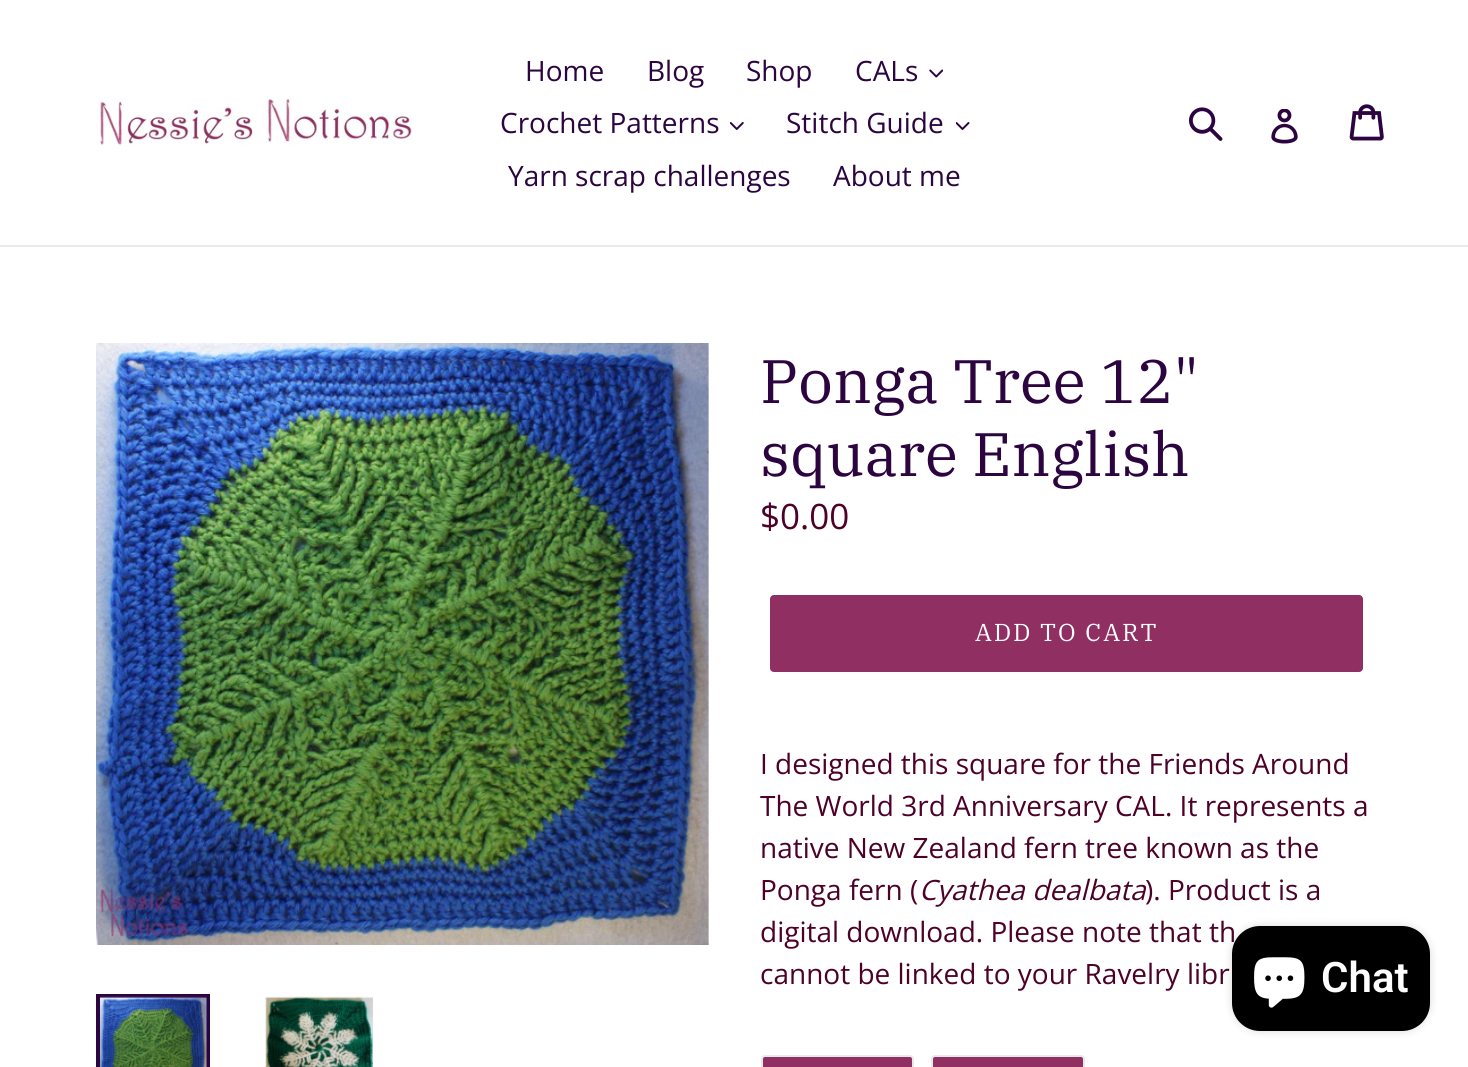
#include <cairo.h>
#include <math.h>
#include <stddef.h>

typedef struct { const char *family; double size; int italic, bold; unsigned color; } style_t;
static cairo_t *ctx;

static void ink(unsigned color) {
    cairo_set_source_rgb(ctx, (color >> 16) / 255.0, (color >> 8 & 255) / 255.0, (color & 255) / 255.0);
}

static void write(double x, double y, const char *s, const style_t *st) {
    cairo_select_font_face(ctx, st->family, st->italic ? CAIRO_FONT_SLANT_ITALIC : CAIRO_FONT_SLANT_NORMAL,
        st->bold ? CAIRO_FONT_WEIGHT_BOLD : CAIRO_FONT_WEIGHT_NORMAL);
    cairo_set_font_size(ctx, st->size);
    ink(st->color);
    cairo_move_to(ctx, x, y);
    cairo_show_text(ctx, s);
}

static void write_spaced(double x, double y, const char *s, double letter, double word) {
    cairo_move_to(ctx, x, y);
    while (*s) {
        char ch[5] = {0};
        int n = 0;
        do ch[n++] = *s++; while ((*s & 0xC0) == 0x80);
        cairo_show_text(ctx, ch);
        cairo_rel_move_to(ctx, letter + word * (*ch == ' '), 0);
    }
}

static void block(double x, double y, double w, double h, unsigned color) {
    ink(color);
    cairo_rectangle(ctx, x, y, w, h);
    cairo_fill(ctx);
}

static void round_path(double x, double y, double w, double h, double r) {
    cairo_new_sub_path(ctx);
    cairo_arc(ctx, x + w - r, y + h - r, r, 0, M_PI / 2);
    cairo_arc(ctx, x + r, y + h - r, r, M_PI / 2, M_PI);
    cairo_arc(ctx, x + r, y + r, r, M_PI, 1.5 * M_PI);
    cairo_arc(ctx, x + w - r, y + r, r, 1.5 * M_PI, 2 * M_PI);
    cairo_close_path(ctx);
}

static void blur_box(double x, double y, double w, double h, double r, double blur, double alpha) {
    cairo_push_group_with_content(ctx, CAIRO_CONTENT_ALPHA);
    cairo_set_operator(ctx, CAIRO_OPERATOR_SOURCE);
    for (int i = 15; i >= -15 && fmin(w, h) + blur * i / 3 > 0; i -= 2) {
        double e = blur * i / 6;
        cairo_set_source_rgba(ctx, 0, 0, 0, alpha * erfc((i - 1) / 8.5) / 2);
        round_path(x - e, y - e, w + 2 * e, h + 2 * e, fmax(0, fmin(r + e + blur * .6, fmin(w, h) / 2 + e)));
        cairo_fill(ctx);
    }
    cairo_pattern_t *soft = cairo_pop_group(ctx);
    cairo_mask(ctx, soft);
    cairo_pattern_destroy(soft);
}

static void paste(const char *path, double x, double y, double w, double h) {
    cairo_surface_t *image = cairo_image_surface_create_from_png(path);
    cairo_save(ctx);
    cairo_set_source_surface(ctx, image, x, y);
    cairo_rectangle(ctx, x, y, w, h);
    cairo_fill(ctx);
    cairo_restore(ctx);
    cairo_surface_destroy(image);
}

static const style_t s1 = {"Open Sans", 28, 0, 0, 0x2c043f};
static const style_t s2 = {"IBM Plex Serif", 61.25, 0, 0, 0x2c043f};
static const style_t s3 = {"Open Sans", 35, 0, 0, 0x4d0129};
static const style_t s4 = {"Open Sans", 28, 0, 0, 0x4d0129};
static const style_t s5 = {"Open Sans", 28, 1, 0, 0x4d0129};
static const style_t s6 = {"Roboto SemiBold", 42, 0, 0, 0xffffff};

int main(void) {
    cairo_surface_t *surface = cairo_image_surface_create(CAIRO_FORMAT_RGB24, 1468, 1067);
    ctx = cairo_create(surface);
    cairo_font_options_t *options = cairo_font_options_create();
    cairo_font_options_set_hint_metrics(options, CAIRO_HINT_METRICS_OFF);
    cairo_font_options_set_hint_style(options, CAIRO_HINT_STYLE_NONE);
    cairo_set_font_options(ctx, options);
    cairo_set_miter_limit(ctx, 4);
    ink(0xffffff);
    cairo_paint(ctx);
    block(0, 245, 1468, 2, 0xe8e9eb);
    paste("pic1.png", 97, 98, 316, 49);
    write(525, 81, "Home", &s1);
    write(647, 81, "Blog", &s1);
    write(746, 81, "Shop", &s1);
    write(855, 81, "CALs", &s1);
    paste("pic2.png", 929, 69, 14, 9);
    write(500, 133, "Crochet Patterns", &s1);
    paste("pic3.png", 730, 122, 14, 8);
    write(786, 133, "Stitch Guide", &s1);
    paste("pic4.png", 956, 122, 14, 8);
    write(508, 186, "Yarn scrap challenges", &s1);
    write(833, 186, "About me", &s1);
    paste("pic5.png", 1189, 107, 34, 34);
    paste("pic6.png", 1271, 109, 27, 35);
    paste("pic7.png", 1349, 104, 35, 37);
    paste("pic8.png", 96, 343, 613, 602);
    cairo_rectangle(ctx, 98, 996, 110, 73);
    cairo_set_line_width(ctx, 4);
    cairo_stroke(ctx);
    paste("pic9.png", 100, 996, 107, 71);
    paste("pic10.png", 265, 996, 108, 71);
    write(760, 403, "Ponga Tree 12\"", &s2);
    write(760, 476, "square English", &s2);
    write(760, 529, "$0.00", &s3);
    ink(0x8f2f62);
    round_path(770, 595, 593, 77, 4);
    cairo_fill(ctx);
    cairo_select_font_face(ctx, "IBM Plex Serif", CAIRO_FONT_SLANT_NORMAL, CAIRO_FONT_WEIGHT_NORMAL);
    cairo_set_font_size(ctx, 24.5);
    ink(0xffffff);
    write_spaced(975, 641, "ADD TO CART", 2, 0);
    write(760, 774, "I designed this square for the Friends Around", &s4);
    write(760, 816, "The World 3rd Anniversary CAL. It represents a", &s4);
    write(760, 858, "native New Zealand fern tree known as the", &s4);
    write(760, 900, "Ponga fern (", &s4);
    write(919, 900, "Cyathea dealbata", &s5);
    write(1145, 900, "). Product is a", &s4);
    write(760, 942, "digital download. Please note that th", &s4);
    write(760, 984, "cannot be linked to your Ravelry libr", &s4);
    ink(0x8f2f62);
    round_path(762, 1056, 151, 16, 3);
    cairo_fill_preserve(ctx);
    ink(0xe8e9eb);
    cairo_set_line_width(ctx, 2);
    cairo_stroke(ctx);
    ink(0x8f2f62);
    round_path(932, 1056, 152, 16, 3);
    cairo_fill_preserve(ctx);
    ink(0xe8e9eb);
    cairo_stroke(ctx);
    ink(0x000000);
    blur_box(1232, 926, 198, 105, 28, 4.5, 0.15);
    ink(0x000000);
    round_path(1232, 926, 198, 105, 28);
    cairo_fill(ctx);
    paste("pic11.png", 1254, 957, 51, 51);
    write(1321, 992, "Chat", &s6);
    cairo_surface_write_to_png(surface, "screenshot.png");
    cairo_font_options_destroy(options);
    cairo_destroy(ctx);
    cairo_surface_destroy(surface);
    return 0;
}
